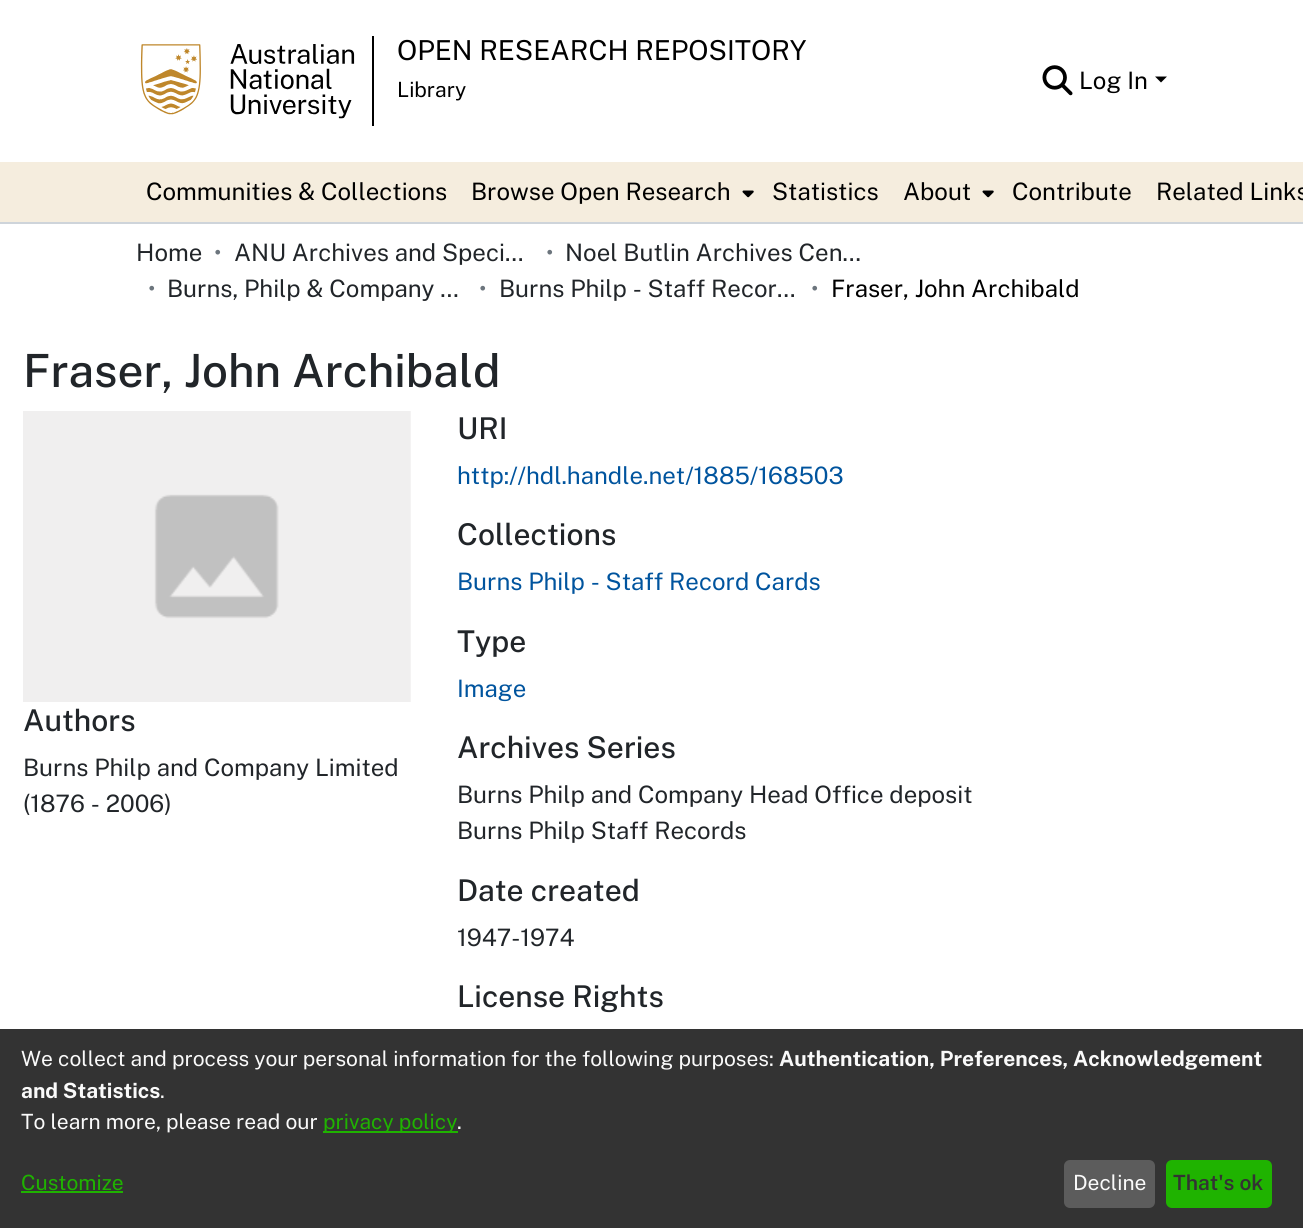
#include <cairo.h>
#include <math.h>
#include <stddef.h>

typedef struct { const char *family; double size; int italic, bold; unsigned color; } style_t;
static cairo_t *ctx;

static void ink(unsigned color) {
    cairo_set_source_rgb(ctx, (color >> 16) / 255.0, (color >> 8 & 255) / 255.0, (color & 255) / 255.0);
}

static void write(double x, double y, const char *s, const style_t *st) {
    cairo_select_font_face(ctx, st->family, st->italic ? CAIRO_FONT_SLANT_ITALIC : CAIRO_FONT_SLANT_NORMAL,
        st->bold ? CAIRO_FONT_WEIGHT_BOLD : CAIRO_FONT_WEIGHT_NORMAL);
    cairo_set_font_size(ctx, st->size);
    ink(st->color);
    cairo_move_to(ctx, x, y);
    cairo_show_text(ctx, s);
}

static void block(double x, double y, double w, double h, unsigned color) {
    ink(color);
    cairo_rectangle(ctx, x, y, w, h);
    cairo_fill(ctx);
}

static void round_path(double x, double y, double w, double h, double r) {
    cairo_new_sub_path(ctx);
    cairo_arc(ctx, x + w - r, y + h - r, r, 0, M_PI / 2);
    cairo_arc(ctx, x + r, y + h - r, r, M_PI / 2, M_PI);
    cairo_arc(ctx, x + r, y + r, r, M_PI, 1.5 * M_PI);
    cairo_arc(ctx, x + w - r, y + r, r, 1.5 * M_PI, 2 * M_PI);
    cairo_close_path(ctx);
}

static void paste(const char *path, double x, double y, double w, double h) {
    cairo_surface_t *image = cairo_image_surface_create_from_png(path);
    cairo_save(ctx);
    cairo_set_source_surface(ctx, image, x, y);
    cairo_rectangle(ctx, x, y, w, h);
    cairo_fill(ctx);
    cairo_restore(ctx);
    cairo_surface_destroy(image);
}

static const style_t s1 = {"Public Sans", 27.5, 0, 0, 0x000000};
static const style_t s2 = {"Public Sans", 21, 0, 0, 0x000000};
static const style_t s3 = {"Public Sans", 24, 0, 0, 0x000000};
static const style_t s4 = {"Public Sans", 24, 0, 0, 0x212529};
static const style_t s5 = {"Public Sans", 24, 0, 0, 0x6c757d};
static const style_t s6 = {"Public Sans Medium", 45.75, 0, 0, 0x212529};
static const style_t s7 = {"Public Sans Medium", 30, 0, 0, 0x212529};
static const style_t s8 = {"Public Sans", 24, 0, 0, 0x00549e};
static const style_t s9 = {"Public Sans", 21, 0, 0, 0xfafafa};
static const style_t s10 = {"Public Sans", 21, 0, 1, 0xfafafa};
static const style_t s11 = {"Public Sans", 21, 0, 0, 0x1fb300};
static const style_t s12 = {"Public Sans SemiBold", 21, 0, 0, 0x333333};

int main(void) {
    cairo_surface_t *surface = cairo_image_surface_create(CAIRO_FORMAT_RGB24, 1303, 1228);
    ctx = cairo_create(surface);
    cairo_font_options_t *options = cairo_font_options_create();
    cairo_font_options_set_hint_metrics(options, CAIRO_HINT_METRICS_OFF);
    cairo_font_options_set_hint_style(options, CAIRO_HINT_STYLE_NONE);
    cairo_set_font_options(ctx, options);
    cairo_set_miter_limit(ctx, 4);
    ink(0xffffff);
    cairo_paint(ctx);
    block(0, 222, 1303, 2, 0xced4da);
    block(372, 36, 2, 90, 0x000000);
    paste("pic1.png", 140, 44, 215, 75);
    write(397, 60, "OPEN RESEARCH REPOSITORY", &s1);
    write(397, 97, "Library", &s2);
    paste("pic2.png", 1042, 65, 31, 31);
    write(1079, 89, "Log In", &s3);
    cairo_new_path(ctx);
    cairo_move_to(ctx, 1155, 76.5);
    cairo_line_to(ctx, 1167, 76.5);
    cairo_line_to(ctx, 1161, 82.5);
    cairo_close_path(ctx);
    cairo_fill(ctx);
    block(0, 162, 1303, 60, 0xf5edde);
    write(146, 200, "Communities & Collections", &s3);
    write(471, 200, "Browse Open Research", &s3);
    paste("pic3.png", 742, 190, 12, 8);
    write(772, 200, "Statistics", &s3);
    write(903, 200, "About", &s3);
    paste("pic3.png", 982, 190, 12, 8);
    write(1012, 200, "Contribute", &s3);
    write(1156, 200, "Related Links", &s3);
    write(136, 261, "Home", &s4);
    write(214, 261, "•", &s5);
    write(234, 261, "ANU Archives and Speci…", &s4);
    write(546, 261, "•", &s5);
    write(565, 261, "Noel Butlin Archives Cen…", &s4);
    write(148, 297, "•", &s5);
    write(167, 297, "Burns, Philp & Company …", &s4);
    write(479, 297, "•", &s5);
    write(499, 297, "Burns Philp - Staff Recor…", &s4);
    write(811, 297, "•", &s5);
    write(831, 297, "Fraser, John Archibald", &s3);
    write(23, 387, "Fraser, John Archibald", &s6);
    paste("pic4.png", 23, 411, 388, 291);
    write(23, 731, "Authors", &s7);
    write(23, 776, "Burns Philp and Company Limited", &s4);
    write(23, 812, "(1876 - 2006)", &s4);
    write(457, 439, "URI", &s7);
    write(457, 484, "http://hdl.handle.net/1885/168503", &s8);
    write(457, 545, "Collections", &s7);
    write(457, 590, "Burns Philp - Staff Record Cards", &s8);
    write(457, 652, "Type", &s7);
    write(457, 697, "Image", &s8);
    write(457, 758, "Archives Series", &s7);
    write(457, 803, "Burns Philp and Company Head Office deposit", &s4);
    write(457, 839, "Burns Philp Staff Records", &s4);
    write(457, 901, "Date created", &s7);
    write(457, 946, "1947-1974", &s4);
    write(457, 1007, "License Rights", &s7);
    block(0, 1029, 1303, 199, 0x333333);
    write(21, 1066, "We collect and process your personal information for the following purposes:", &s9);
    write(779, 1066, "Authentication, Preferences, Acknowledgement", &s10);
    write(21, 1098, "and Statistics", &s10);
    write(160, 1098, ".", &s9);
    write(21, 1129, "To learn more, please read our", &s9);
    block(323, 1131, 135, 2, 0x1fb300);
    write(323, 1129, "privacy policy", &s11);
    write(457, 1129, ".", &s9);
    write(21, 1190, "Customize", &s11);
    block(21, 1191, 102, 2, 0x1fb300);
    ink(0x5c5c5c);
    round_path(1064, 1160, 91, 48, 6);
    cairo_fill(ctx);
    write(1073, 1190, "Decline", &s9);
    ink(0x1fb300);
    round_path(1166, 1160, 106, 48, 6);
    cairo_fill(ctx);
    write(1173, 1190, "That's ok", &s12);
    cairo_surface_write_to_png(surface, "screenshot.png");
    cairo_font_options_destroy(options);
    cairo_destroy(ctx);
    cairo_surface_destroy(surface);
    return 0;
}
